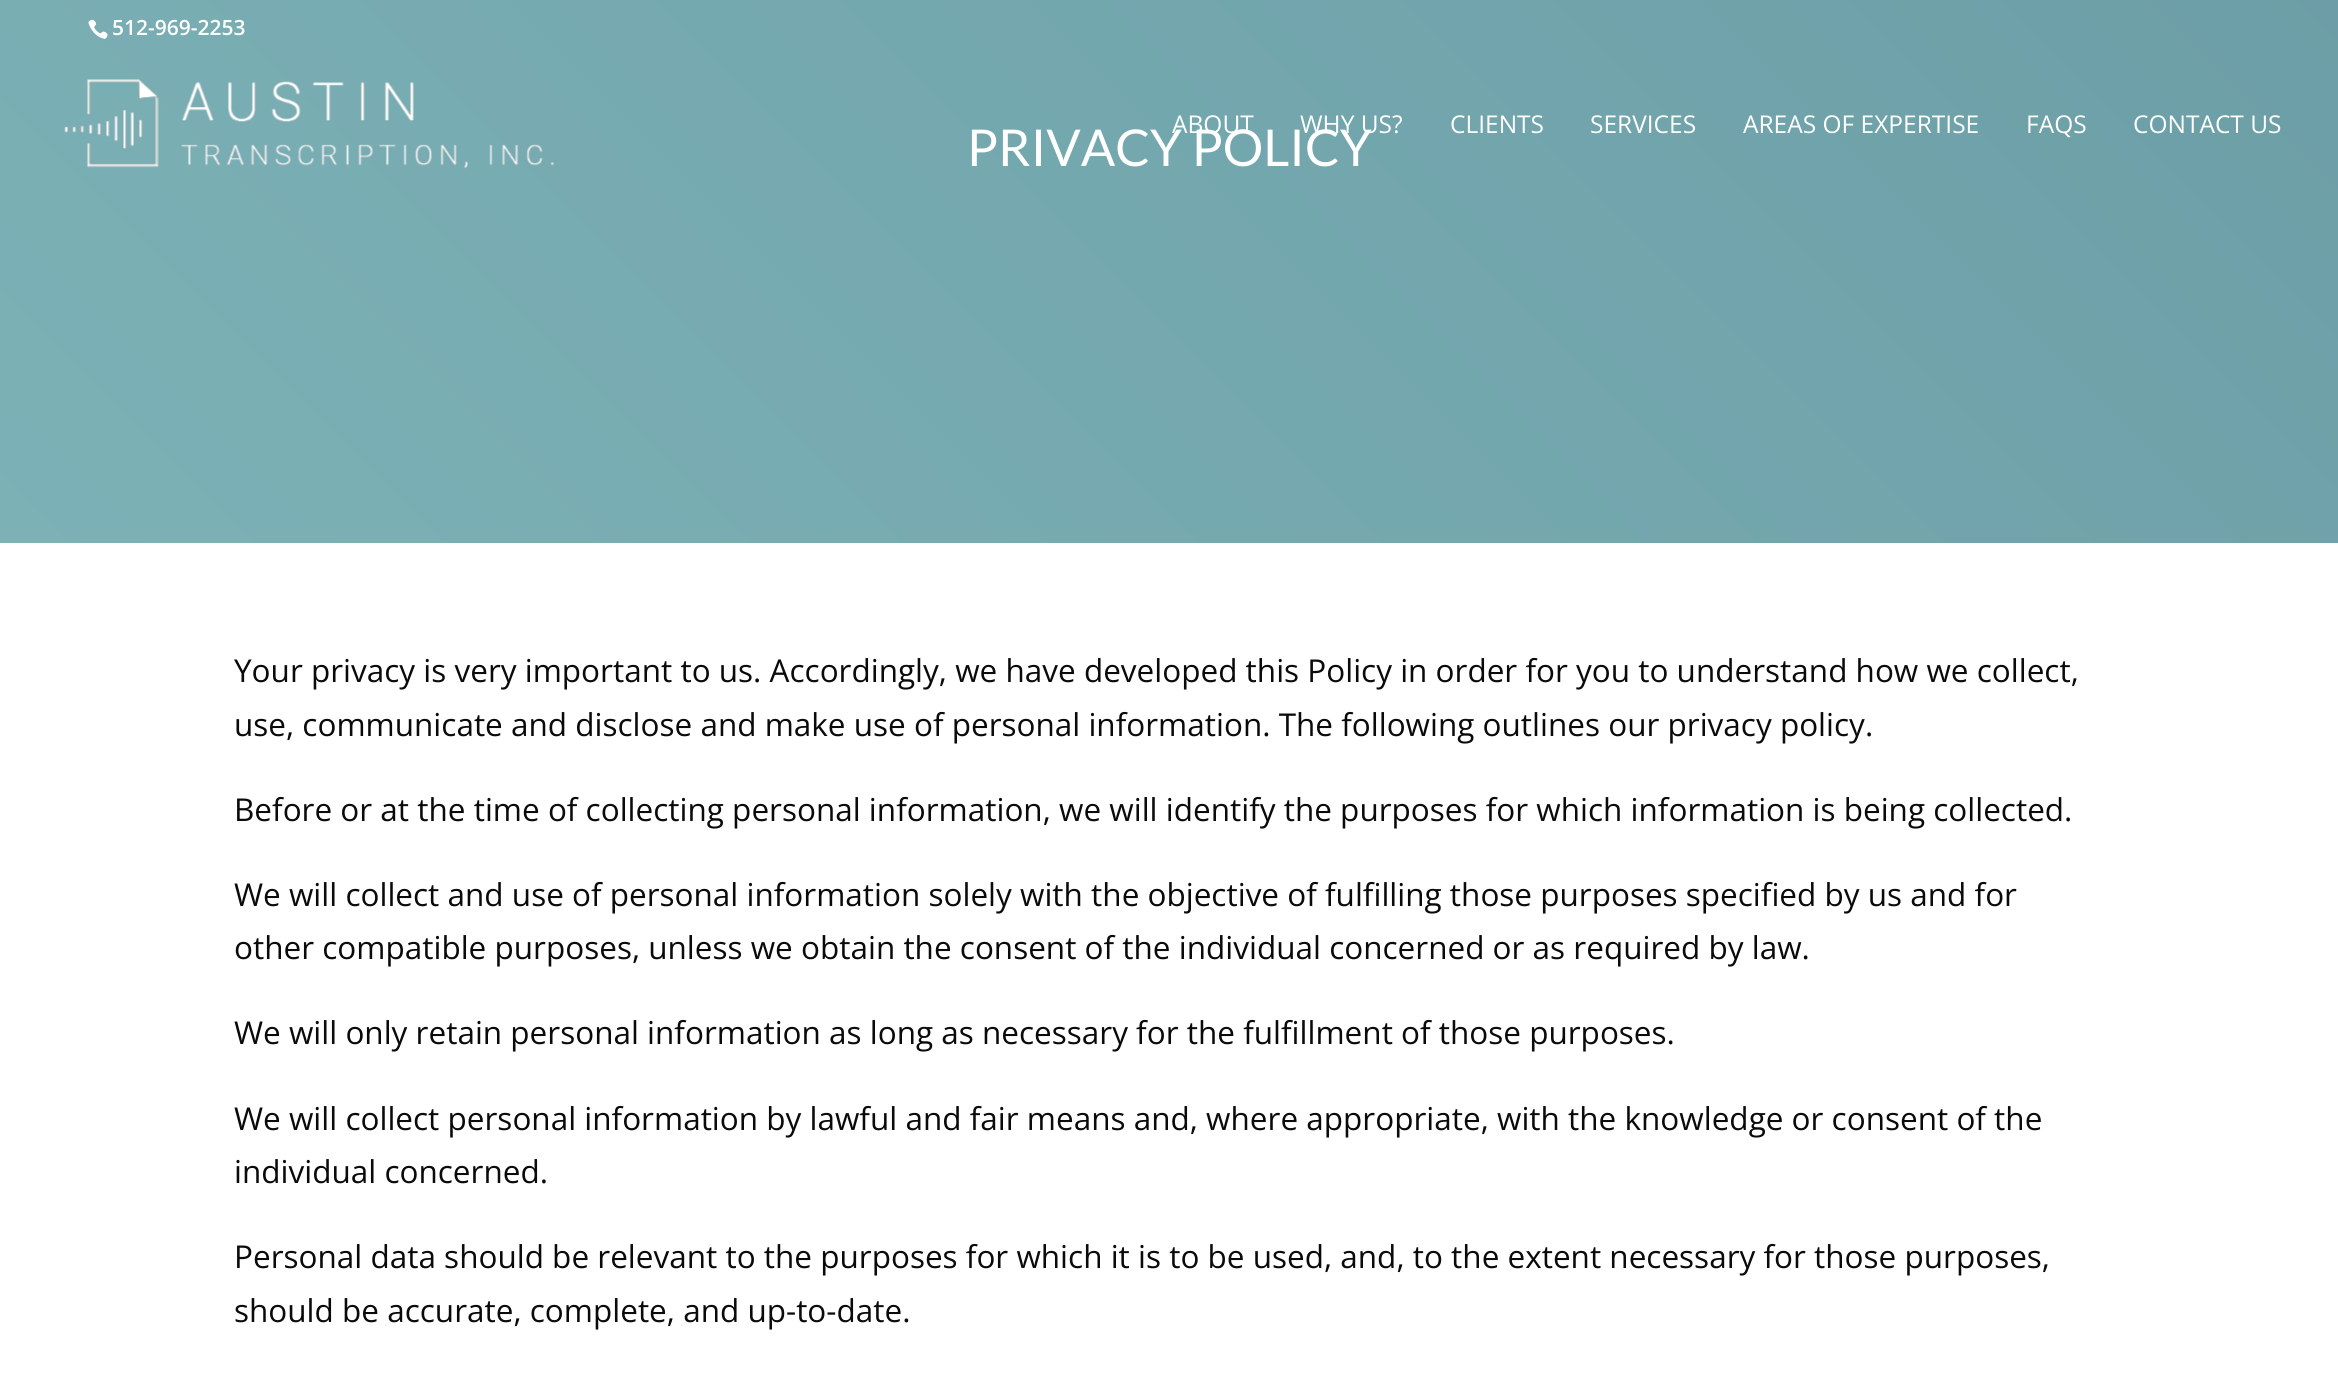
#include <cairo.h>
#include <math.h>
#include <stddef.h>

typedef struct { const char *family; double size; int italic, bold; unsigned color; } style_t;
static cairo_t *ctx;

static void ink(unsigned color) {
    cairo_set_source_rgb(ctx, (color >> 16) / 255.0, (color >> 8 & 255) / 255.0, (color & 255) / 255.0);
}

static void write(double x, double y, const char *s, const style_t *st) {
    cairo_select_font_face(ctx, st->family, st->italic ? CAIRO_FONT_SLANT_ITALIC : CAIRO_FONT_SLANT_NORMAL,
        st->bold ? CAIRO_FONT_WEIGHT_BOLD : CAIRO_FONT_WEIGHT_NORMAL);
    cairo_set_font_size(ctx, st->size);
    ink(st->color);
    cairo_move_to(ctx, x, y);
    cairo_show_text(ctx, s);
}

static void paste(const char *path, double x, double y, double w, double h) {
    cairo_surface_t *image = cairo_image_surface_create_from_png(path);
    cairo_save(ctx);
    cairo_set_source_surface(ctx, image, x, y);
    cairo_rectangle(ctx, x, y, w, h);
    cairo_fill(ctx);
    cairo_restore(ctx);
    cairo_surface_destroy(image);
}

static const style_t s1 = {"Open Sans SemiBold", 21, 0, 0, 0xffffff};
static const style_t s2 = {"Open Sans", 24.5, 0, 0, 0xffffff};
static const style_t s3 = {"Lato", 50.75, 0, 0, 0xffffff};
static const style_t s4 = {"Open Sans", 31.5, 0, 0, 0x0a0a0a};

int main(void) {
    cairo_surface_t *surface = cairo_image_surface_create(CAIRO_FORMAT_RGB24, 2338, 1398);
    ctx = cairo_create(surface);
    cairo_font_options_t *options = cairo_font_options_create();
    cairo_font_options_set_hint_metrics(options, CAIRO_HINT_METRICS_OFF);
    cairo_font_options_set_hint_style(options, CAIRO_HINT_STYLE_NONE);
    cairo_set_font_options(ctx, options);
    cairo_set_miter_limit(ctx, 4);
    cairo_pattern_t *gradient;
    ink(0xffffff);
    cairo_paint(ctx);
    gradient = cairo_pattern_create_linear(-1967, 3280, 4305, -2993);
    cairo_pattern_add_color_stop_rgba(gradient, 0, 0.584, 0.82, 0.812, 1);
    cairo_pattern_add_color_stop_rgba(gradient, 1, 0.322, 0.49, 0.553, 1);
    cairo_set_source(ctx, gradient);
    cairo_pattern_destroy(gradient);
    cairo_rectangle(ctx, 0, 0, 2338, 543);
    cairo_fill(ctx);
    paste("pic1.png", 88, 19, 20, 20);
    write(112, 35, "512-969-2253", &s1);
    paste("pic2.png", 64, 79, 491, 90);
    write(1172, 133, "ABOUT", &s2);
    write(1300, 133, "WHY US?", &s2);
    write(1450, 133, "CLIENTS", &s2);
    write(1590, 133, "SERVICES", &s2);
    write(1743, 133, "AREAS OF EXPERTISE", &s2);
    write(2026, 133, "FAQS", &s2);
    write(2133, 133, "CONTACT US", &s2);
    write(967, 166, "PRIVACY POLICY", &s3);
    write(234, 682, "Your privacy is very important to us. Accordingly, we have developed this Policy in order for you to understand how we collect,", &s4);
    write(234, 736, "use, communicate and disclose and make use of personal information. The following outlines our privacy policy.", &s4);
    write(234, 821, "Before or at the time of collecting personal information, we will identify the purposes for which information is being collected.", &s4);
    write(234, 906, "We will collect and use of personal information solely with the objective of fulfilling those purposes specified by us and for", &s4);
    write(234, 959, "other compatible purposes, unless we obtain the consent of the individual concerned or as required by law.", &s4);
    write(234, 1044, "We will only retain personal information as long as necessary for the fulfillment of those purposes.", &s4);
    write(234, 1130, "We will collect personal information by lawful and fair means and, where appropriate, with the knowledge or consent of the", &s4);
    write(234, 1183, "individual concerned.", &s4);
    write(234, 1268, "Personal data should be relevant to the purposes for which it is to be used, and, to the extent necessary for those purposes,", &s4);
    write(234, 1322, "should be accurate, complete, and up-to-date.", &s4);
    cairo_surface_write_to_png(surface, "screenshot.png");
    cairo_font_options_destroy(options);
    cairo_destroy(ctx);
    cairo_surface_destroy(surface);
    return 0;
}
